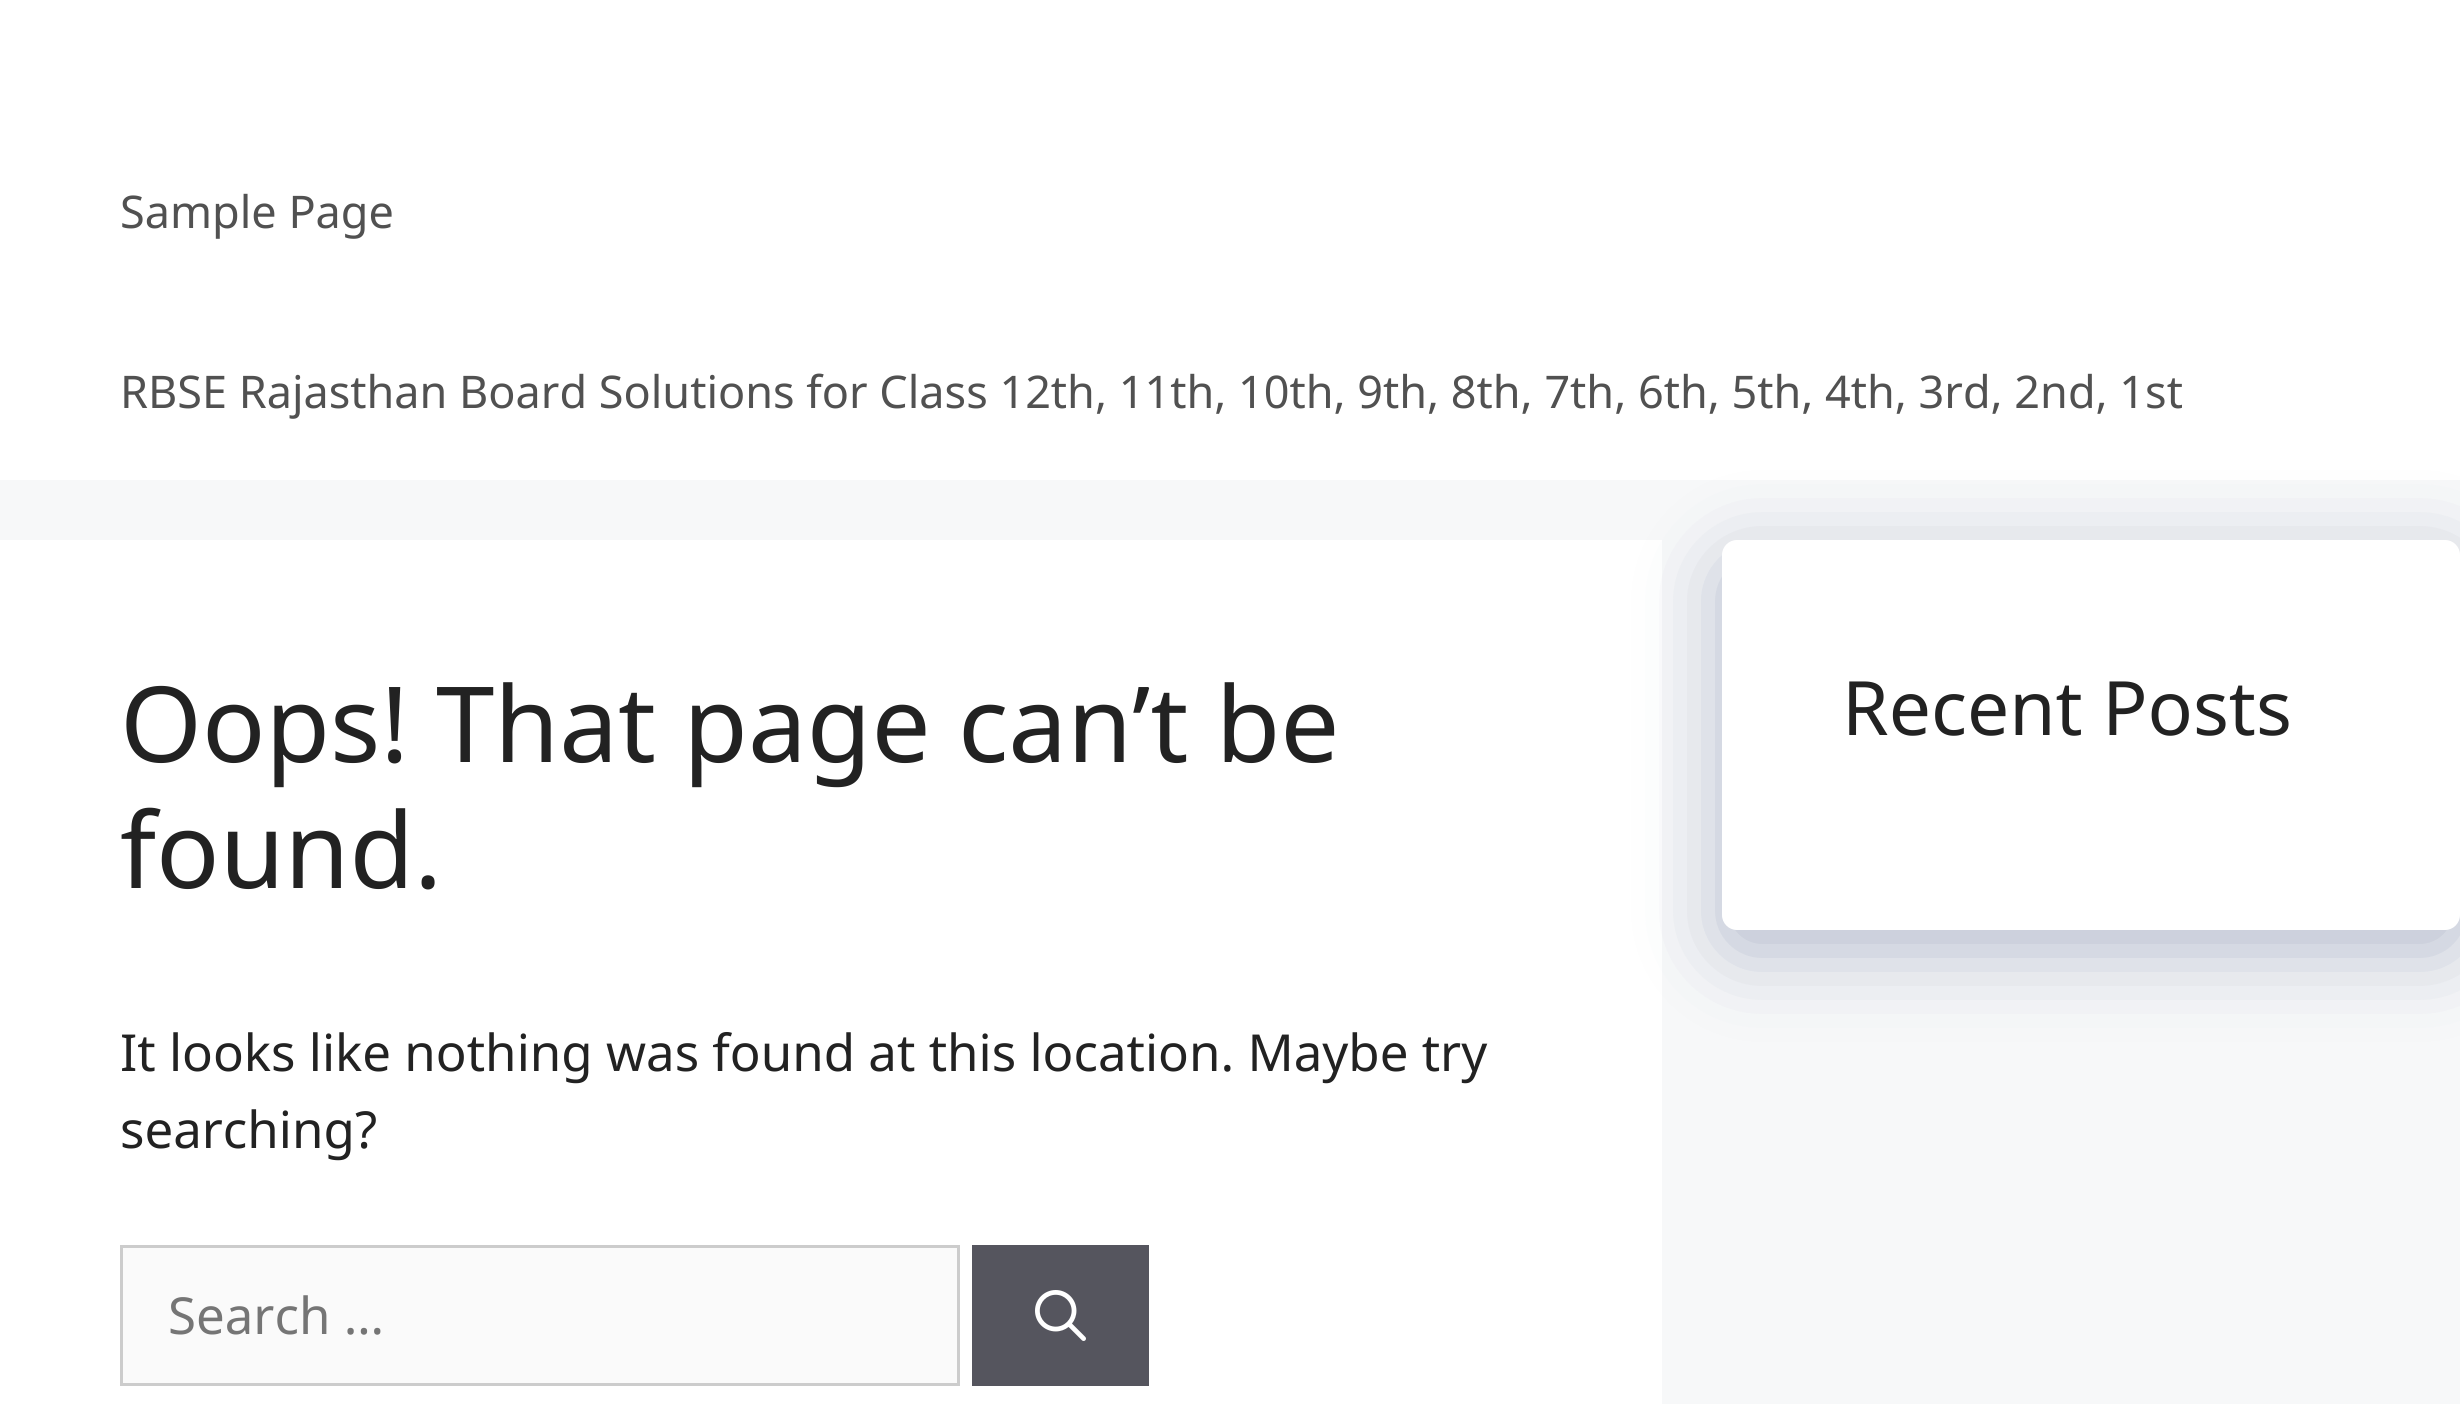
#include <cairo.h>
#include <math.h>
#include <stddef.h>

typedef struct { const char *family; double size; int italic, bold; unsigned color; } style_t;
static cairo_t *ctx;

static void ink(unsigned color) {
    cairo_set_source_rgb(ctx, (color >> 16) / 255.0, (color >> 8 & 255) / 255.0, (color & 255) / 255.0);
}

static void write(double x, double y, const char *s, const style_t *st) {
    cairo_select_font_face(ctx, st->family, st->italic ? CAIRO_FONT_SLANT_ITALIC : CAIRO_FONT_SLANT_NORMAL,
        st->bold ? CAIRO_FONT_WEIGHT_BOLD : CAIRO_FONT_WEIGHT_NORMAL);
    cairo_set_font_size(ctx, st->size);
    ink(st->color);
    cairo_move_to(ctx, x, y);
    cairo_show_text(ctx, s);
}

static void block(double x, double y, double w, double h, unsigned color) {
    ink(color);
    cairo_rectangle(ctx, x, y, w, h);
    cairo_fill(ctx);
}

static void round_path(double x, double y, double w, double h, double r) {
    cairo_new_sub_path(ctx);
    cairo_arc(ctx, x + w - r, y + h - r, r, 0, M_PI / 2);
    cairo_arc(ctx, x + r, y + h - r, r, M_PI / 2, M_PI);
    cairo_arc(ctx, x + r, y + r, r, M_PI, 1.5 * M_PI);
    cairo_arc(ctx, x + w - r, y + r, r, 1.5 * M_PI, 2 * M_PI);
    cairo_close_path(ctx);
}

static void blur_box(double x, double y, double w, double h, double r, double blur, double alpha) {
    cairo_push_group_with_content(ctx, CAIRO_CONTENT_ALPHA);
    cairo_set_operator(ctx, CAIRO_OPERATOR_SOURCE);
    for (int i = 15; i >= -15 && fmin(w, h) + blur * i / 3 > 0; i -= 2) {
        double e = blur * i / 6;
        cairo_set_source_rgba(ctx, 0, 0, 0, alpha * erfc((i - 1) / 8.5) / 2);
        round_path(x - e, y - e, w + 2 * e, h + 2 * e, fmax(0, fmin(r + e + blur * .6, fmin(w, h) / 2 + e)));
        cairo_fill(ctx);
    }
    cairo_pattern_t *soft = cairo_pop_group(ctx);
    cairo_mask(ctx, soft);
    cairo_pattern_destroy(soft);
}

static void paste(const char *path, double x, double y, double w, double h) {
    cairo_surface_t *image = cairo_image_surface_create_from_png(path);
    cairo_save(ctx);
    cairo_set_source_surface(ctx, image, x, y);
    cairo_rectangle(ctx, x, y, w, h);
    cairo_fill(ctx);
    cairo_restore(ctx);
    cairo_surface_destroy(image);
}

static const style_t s1 = {"Noto Sans", 45, 0, 0, 0x515151};
static const style_t s2 = {"Noto Sans", 105, 0, 0, 0x222222};
static const style_t s3 = {"Noto Sans", 51, 0, 0, 0x222222};
static const style_t s4 = {"Noto Sans", 51, 0, 0, 0x757575};
static const style_t s5 = {"Noto Sans", 75, 0, 0, 0x222222};

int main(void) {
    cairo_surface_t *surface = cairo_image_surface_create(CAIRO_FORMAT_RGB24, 2460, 1404);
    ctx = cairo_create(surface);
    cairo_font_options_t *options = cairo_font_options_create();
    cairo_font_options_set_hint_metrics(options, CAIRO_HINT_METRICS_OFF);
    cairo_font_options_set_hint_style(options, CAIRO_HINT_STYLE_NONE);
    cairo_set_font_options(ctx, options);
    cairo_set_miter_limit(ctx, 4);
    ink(0xf7f8f9);
    cairo_paint(ctx);
    block(0, 0, 2460, 480, 0xffffff);
    write(120, 228, "Sample Page", &s1);
    write(120, 408, "RBSE Rajasthan Board Solutions for Class 12th, 11th, 10th, 9th, 8th, 7th, 6th, 5th, 4th, 3rd, 2nd, 1st", &s1);
    block(0, 540, 1662, 864, 0xffffff);
    write(120, 762, "Oops! That page can’t be", &s2);
    write(120, 888, "found.", &s2);
    write(120, 1071, "It looks like nothing was found at this location. Maybe try", &s3);
    write(120, 1148, "searching?", &s3);
    ink(0xfafafa);
    cairo_rectangle(ctx, 121.5, 1246.5, 837, 138);
    cairo_fill_preserve(ctx);
    ink(0xcccccc);
    cairo_set_line_width(ctx, 3);
    cairo_stroke(ctx);
    write(168, 1334, "Search …", &s4);
    block(972, 1245, 177, 141, 0x55555e);
    paste("pic1.png", 1035, 1290, 51, 51);
    ink(0x172b63);
    blur_box(1722, 561, 738, 390, 15, 42, 0.3);
    ink(0xffffff);
    round_path(1722, 540, 738, 390, 15);
    cairo_fill(ctx);
    write(1842, 735, "Recent Posts", &s5);
    cairo_surface_write_to_png(surface, "screenshot.png");
    cairo_font_options_destroy(options);
    cairo_destroy(ctx);
    cairo_surface_destroy(surface);
    return 0;
}
